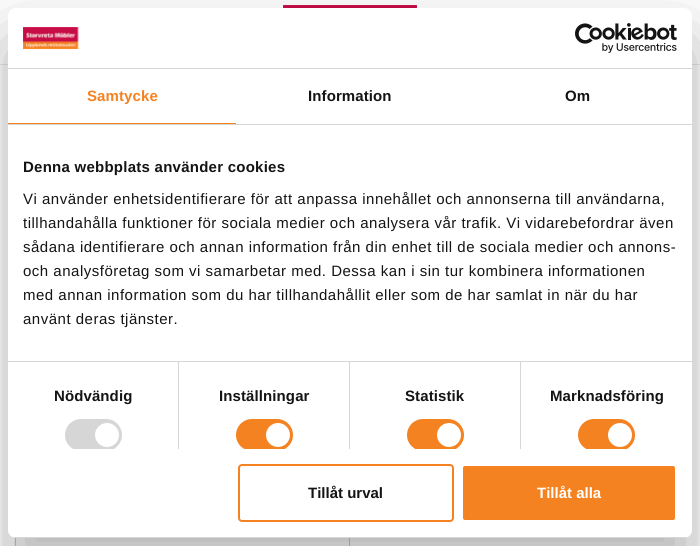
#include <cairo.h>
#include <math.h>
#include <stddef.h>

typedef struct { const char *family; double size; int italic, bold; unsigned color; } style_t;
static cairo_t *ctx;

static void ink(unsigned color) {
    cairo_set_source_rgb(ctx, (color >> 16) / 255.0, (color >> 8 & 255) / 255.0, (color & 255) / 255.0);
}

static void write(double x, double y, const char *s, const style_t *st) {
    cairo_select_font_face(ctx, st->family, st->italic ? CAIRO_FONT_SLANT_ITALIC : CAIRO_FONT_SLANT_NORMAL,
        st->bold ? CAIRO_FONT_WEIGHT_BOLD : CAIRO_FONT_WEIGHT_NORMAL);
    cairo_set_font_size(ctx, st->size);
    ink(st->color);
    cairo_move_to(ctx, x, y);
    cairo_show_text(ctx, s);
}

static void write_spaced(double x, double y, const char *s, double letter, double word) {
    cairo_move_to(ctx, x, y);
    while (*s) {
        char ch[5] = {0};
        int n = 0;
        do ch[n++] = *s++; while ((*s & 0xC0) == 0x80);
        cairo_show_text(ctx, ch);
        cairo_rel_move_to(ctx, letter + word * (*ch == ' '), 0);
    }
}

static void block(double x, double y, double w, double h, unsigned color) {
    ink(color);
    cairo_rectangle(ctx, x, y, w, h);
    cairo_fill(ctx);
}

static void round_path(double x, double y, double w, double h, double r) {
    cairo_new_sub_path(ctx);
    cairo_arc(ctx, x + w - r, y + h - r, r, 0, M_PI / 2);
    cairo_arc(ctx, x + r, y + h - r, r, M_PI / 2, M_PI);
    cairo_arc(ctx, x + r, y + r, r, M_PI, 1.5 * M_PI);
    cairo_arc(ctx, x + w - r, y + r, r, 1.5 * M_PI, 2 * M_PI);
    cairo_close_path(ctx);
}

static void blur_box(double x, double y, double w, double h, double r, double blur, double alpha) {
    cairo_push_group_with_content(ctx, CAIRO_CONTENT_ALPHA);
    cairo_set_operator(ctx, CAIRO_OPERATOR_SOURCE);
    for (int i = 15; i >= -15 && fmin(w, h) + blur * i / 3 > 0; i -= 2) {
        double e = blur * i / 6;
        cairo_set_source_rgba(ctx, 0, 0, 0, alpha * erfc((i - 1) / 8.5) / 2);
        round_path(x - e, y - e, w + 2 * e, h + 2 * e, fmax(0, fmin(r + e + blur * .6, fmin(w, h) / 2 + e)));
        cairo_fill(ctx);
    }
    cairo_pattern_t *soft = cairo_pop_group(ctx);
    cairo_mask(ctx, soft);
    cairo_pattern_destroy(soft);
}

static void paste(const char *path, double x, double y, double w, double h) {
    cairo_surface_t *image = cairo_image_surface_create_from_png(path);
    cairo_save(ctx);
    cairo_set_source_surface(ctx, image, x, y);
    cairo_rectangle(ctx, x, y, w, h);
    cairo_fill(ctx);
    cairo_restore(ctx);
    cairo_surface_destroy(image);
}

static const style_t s1 = {"Liberation Sans", 15, 0, 1, 0x141414};
static const style_t s2 = {"Liberation Sans", 15, 0, 1, 0xffffff};

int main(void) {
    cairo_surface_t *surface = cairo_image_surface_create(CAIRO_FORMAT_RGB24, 700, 546);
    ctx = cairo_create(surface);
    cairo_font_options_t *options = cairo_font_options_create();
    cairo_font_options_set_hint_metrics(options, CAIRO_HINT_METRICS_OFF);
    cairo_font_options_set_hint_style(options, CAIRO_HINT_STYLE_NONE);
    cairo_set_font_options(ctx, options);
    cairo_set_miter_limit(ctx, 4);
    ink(0xffffff);
    cairo_paint(ctx);
    block(0, 64, 700, 1, 0xe9e9e9);
    paste("pic1.png", 283, 5, 134, 3);
    cairo_rectangle(ctx, 15.5, 419.5, 334, 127);
    ink(0xcccccc);
    cairo_set_line_width(ctx, 1);
    cairo_stroke(ctx);
    ink(0x000000);
    blur_box(8, 40, 684, 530, 8, 34, 0.3);
    ink(0xffffff);
    round_path(8, 8, 684, 530, 8);
    cairo_fill(ctx);
    block(8, 68, 684, 1, 0xd6d6d6);
    paste("pic2.png", 23, 27, 56, 23);
    paste("pic3.png", 575, 23, 102, 30);
    block(8, 124, 684, 1, 0xd6d6d6);
    block(8, 123, 228, 1, 0xf58221);
    cairo_select_font_face(ctx, "Liberation Sans", CAIRO_FONT_SLANT_NORMAL, CAIRO_FONT_WEIGHT_BOLD);
    cairo_set_font_size(ctx, 15);
    write_spaced(87, 101, "Samtycke", 0.1, 0);
    ink(0x141414);
    write_spaced(308, 101, "Information", 0.1, 0);
    write_spaced(565, 101, "Om", 0.1, 0);
    block(8, 361, 684, 1, 0xd6d6d6);
    ink(0x141414);
    write_spaced(23, 172, "Denna webbplats använder cookies", 0.25, 0);
    cairo_select_font_face(ctx, "Liberation Sans", CAIRO_FONT_SLANT_NORMAL, CAIRO_FONT_WEIGHT_NORMAL);
    write_spaced(23, 204, "Vi använder enhetsidentifierare för att anpassa innehållet och annonserna till användarna,", 0.5, 0);
    write_spaced(23, 228, "tillhandahålla funktioner för sociala medier och analysera vår trafik. Vi vidarebefordrar även", 0.5, 0);
    write_spaced(23, 252, "sådana identifierare och annan information från din enhet till de sociala medier och annons-", 0.5, 0);
    write_spaced(23, 276, "och analysföretag som vi samarbetar med. Dessa kan i sin tur kombinera informationen", 0.5, 0);
    write_spaced(23, 300, "med annan information som du har tillhandahållit eller som de har samlat in när du har", 0.5, 0);
    write_spaced(23, 324, "använt deras tjänster.", 0.5, 0);
    block(178, 362, 1, 87, 0xd6d6d6);
    cairo_select_font_face(ctx, "Liberation Sans", CAIRO_FONT_SLANT_NORMAL, CAIRO_FONT_WEIGHT_BOLD);
    ink(0x141414);
    write_spaced(54, 401, "Nödvändig", 0.1, 0);
    cairo_save(ctx);
    cairo_rectangle(ctx, 8, 125, 684, 324);
    cairo_clip(ctx);
    ink(0xd6d6d6);
    round_path(65, 419, 57, 32, 16);
    cairo_fill(ctx);
    cairo_restore(ctx);
    ink(0xffffff);
    cairo_arc(ctx, 107, 435, 12, 0, 2 * M_PI);
    cairo_fill(ctx);
    block(349, 362, 1, 87, 0xd6d6d6);
    ink(0x141414);
    write_spaced(219, 401, "Inställningar", 0.1, 0);
    cairo_save(ctx);
    cairo_rectangle(ctx, 8, 125, 684, 324);
    cairo_clip(ctx);
    ink(0xf58221);
    round_path(236, 419, 57, 32, 16);
    cairo_fill(ctx);
    cairo_restore(ctx);
    ink(0xffffff);
    cairo_arc(ctx, 278, 435, 12, 0, 2 * M_PI);
    cairo_fill(ctx);
    block(520, 362, 1, 87, 0xd6d6d6);
    ink(0x141414);
    write_spaced(405, 401, "Statistik", 0.1, 0);
    cairo_save(ctx);
    cairo_rectangle(ctx, 8, 125, 684, 324);
    cairo_clip(ctx);
    ink(0xf58221);
    round_path(407, 419, 57, 32, 16);
    cairo_fill(ctx);
    cairo_restore(ctx);
    ink(0xffffff);
    cairo_arc(ctx, 449, 435, 12, 0, 2 * M_PI);
    cairo_fill(ctx);
    ink(0x141414);
    write_spaced(550, 401, "Marknadsföring", 0.1, 0);
    cairo_save(ctx);
    cairo_rectangle(ctx, 8, 125, 684, 324);
    cairo_clip(ctx);
    ink(0xf58221);
    round_path(578, 419, 57, 32, 16);
    cairo_fill(ctx);
    cairo_restore(ctx);
    ink(0xffffff);
    cairo_arc(ctx, 620, 435, 12, 0, 2 * M_PI);
    cairo_fill(ctx);
    cairo_save(ctx);
    round_path(8, 8, 684, 530, 8);
    cairo_clip(ctx);
    block(8, 537, 684, 1, 0xd6d6d6);
    cairo_restore(ctx);
    round_path(239, 465, 214, 56, 3);
    ink(0xf58221);
    cairo_set_line_width(ctx, 2);
    cairo_stroke(ctx);
    write(308, 498, "Tillåt urval", &s1);
    ink(0xf58221);
    round_path(462, 465, 214, 56, 3);
    cairo_fill_preserve(ctx);
    ink(0xffffff);
    cairo_stroke(ctx);
    write(537, 498, "Tillåt alla", &s2);
    cairo_surface_write_to_png(surface, "screenshot.png");
    cairo_font_options_destroy(options);
    cairo_destroy(ctx);
    cairo_surface_destroy(surface);
    return 0;
}
